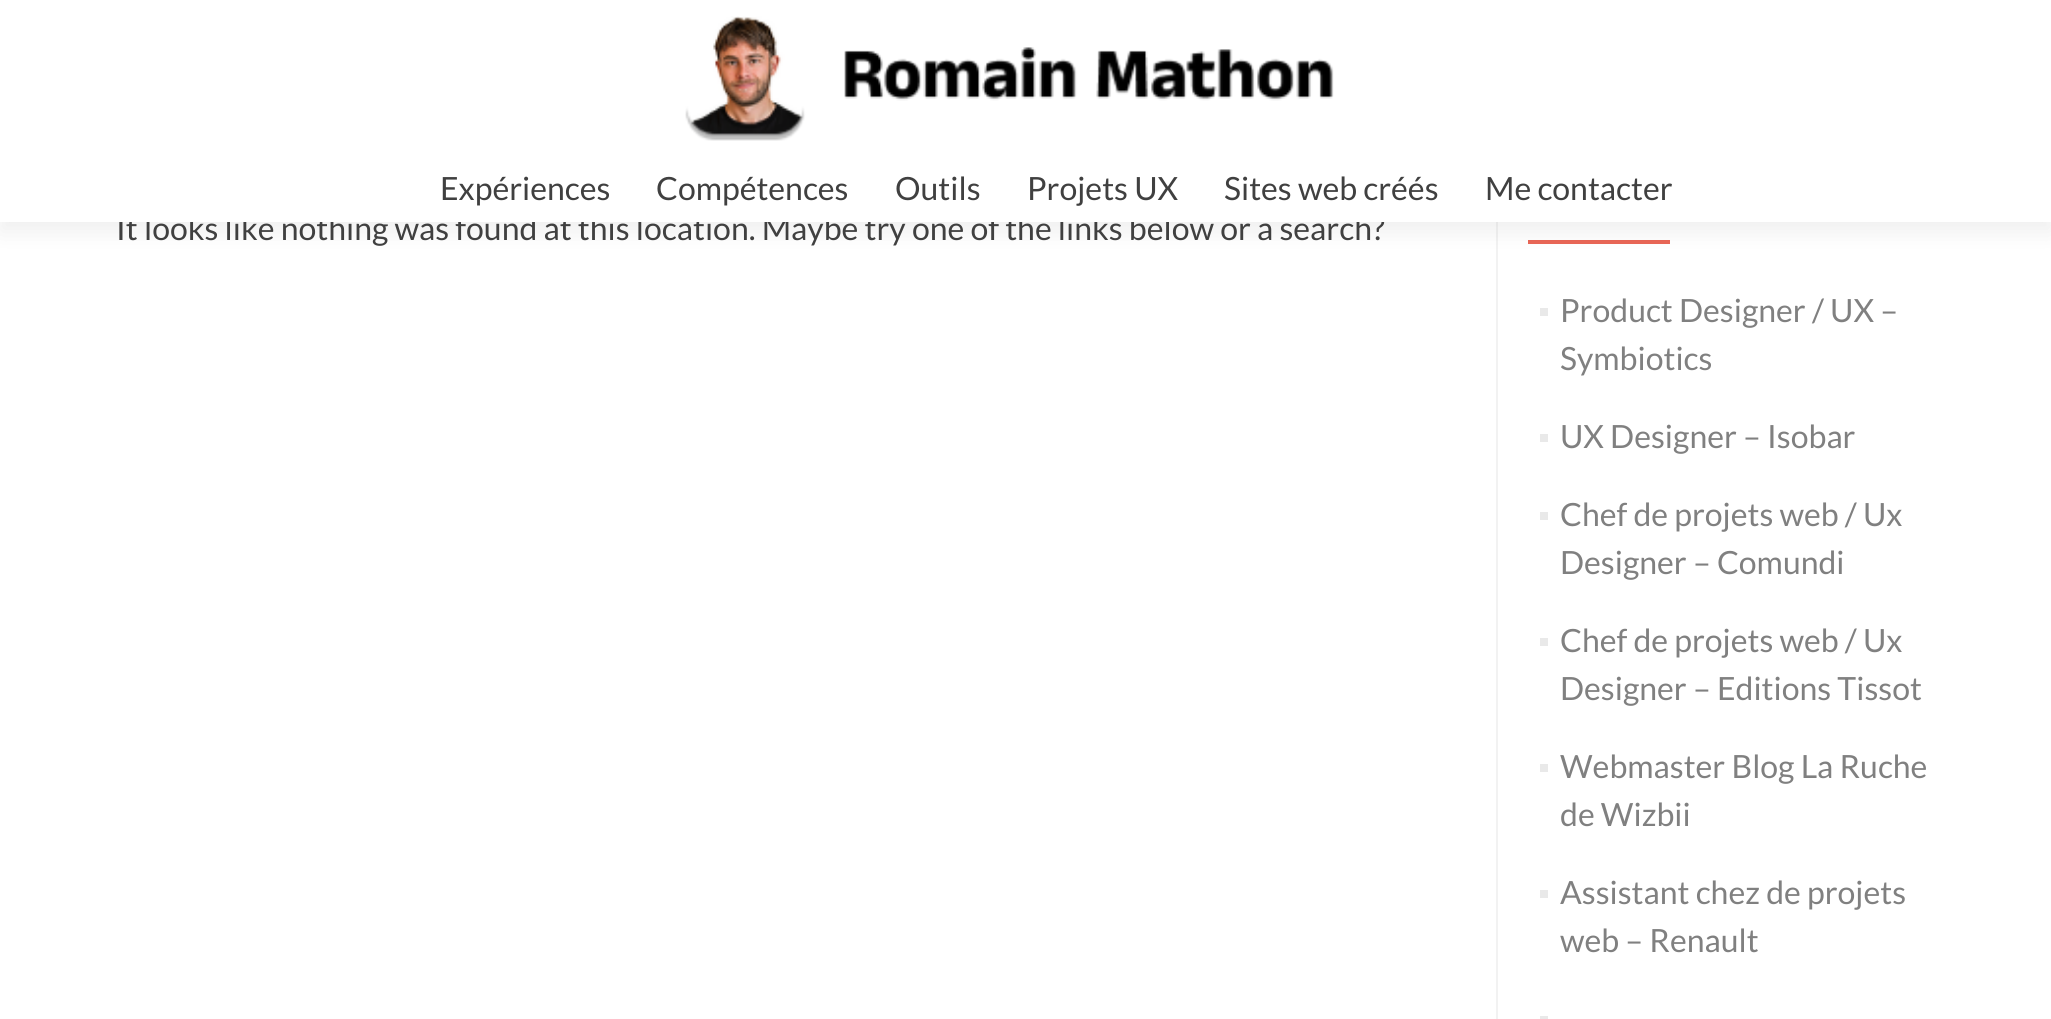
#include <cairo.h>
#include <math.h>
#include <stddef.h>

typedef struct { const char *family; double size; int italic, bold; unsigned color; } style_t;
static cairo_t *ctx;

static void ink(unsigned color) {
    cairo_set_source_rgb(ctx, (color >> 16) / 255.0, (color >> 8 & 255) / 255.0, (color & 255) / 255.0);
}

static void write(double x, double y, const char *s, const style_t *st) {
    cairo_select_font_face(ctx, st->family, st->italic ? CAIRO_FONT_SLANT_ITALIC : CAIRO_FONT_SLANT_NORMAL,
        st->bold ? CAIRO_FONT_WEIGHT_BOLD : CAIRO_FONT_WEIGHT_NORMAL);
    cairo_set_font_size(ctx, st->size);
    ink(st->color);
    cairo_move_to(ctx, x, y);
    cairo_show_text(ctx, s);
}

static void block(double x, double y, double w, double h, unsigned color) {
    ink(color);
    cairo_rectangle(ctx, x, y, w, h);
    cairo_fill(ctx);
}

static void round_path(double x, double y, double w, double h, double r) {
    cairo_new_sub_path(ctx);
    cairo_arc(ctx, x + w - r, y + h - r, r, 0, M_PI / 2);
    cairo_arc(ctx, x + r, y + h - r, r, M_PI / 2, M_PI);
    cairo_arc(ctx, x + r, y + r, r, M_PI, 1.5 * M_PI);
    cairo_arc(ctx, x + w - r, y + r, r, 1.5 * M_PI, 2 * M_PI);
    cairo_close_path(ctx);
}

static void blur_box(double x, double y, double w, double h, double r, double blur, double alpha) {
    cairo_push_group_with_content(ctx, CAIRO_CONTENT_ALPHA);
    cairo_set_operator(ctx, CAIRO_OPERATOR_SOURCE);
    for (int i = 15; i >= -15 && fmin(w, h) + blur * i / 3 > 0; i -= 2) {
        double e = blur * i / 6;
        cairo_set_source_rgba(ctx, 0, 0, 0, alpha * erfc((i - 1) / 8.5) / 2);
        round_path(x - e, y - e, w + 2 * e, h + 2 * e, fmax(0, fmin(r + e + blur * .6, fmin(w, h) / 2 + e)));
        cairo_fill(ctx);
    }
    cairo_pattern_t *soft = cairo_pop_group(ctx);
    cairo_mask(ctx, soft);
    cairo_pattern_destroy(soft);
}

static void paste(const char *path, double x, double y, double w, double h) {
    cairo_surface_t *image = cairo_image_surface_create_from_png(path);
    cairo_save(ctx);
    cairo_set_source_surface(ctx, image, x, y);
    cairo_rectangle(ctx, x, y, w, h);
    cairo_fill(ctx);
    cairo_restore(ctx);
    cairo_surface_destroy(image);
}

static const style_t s1 = {"Lato", 32, 0, 0, 0x404040};
static const style_t s2 = {"Lato", 32, 0, 0, 0x808080};

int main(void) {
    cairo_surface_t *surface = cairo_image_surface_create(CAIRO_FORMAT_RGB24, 2051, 1019);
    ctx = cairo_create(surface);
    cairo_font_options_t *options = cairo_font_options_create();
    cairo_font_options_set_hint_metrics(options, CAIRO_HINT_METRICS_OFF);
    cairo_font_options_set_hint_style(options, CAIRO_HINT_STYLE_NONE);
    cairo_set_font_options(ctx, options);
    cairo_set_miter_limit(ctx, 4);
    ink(0xffffff);
    cairo_paint(ctx);
    block(1496, 222, 2, 797, 0xf2f2f2);
    block(1528, 240, 142, 4, 0xe96656);
    ink(0x323232);
    blur_box(0, 10, 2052, 222, 0, 11, 0.08);
    write(116, 240, "It looks like nothing was found at this location. Maybe try one of the links below or a search?", &s1);
    block(0, 0, 2051, 222, 0xffffff);
    paste("pic1.png", 685, 16, 649, 125);
    write(440, 200, "Expériences", &s1);
    write(656, 200, "Compétences", &s1);
    write(895, 200, "Outils", &s1);
    write(1027, 200, "Projets UX", &s1);
    write(1224, 200, "Sites web créés", &s1);
    write(1485, 200, "Me contacter", &s1);
    block(1540, 308, 8, 8, 0xe9e9e9);
    write(1560, 322, "Product Designer / UX –", &s2);
    write(1560, 370, "Symbiotics", &s2);
    block(1540, 434, 8, 8, 0xe9e9e9);
    write(1560, 448, "UX Designer – Isobar", &s2);
    block(1540, 512, 8, 8, 0xe9e9e9);
    write(1560, 526, "Chef de projets web / Ux", &s2);
    write(1560, 574, "Designer – Comundi", &s2);
    block(1540, 638, 8, 8, 0xe9e9e9);
    write(1560, 652, "Chef de projets web / Ux", &s2);
    write(1560, 700, "Designer – Editions Tissot", &s2);
    block(1540, 764, 8, 8, 0xe9e9e9);
    write(1560, 778, "Webmaster Blog La Ruche", &s2);
    write(1560, 826, "de Wizbii", &s2);
    block(1540, 890, 8, 8, 0xe9e9e9);
    write(1560, 904, "Assistant chez de projets", &s2);
    write(1560, 952, "web – Renault", &s2);
    block(1540, 1016, 8, 3, 0xe9e9e9);
    cairo_surface_write_to_png(surface, "screenshot.png");
    cairo_font_options_destroy(options);
    cairo_destroy(ctx);
    cairo_surface_destroy(surface);
    return 0;
}
